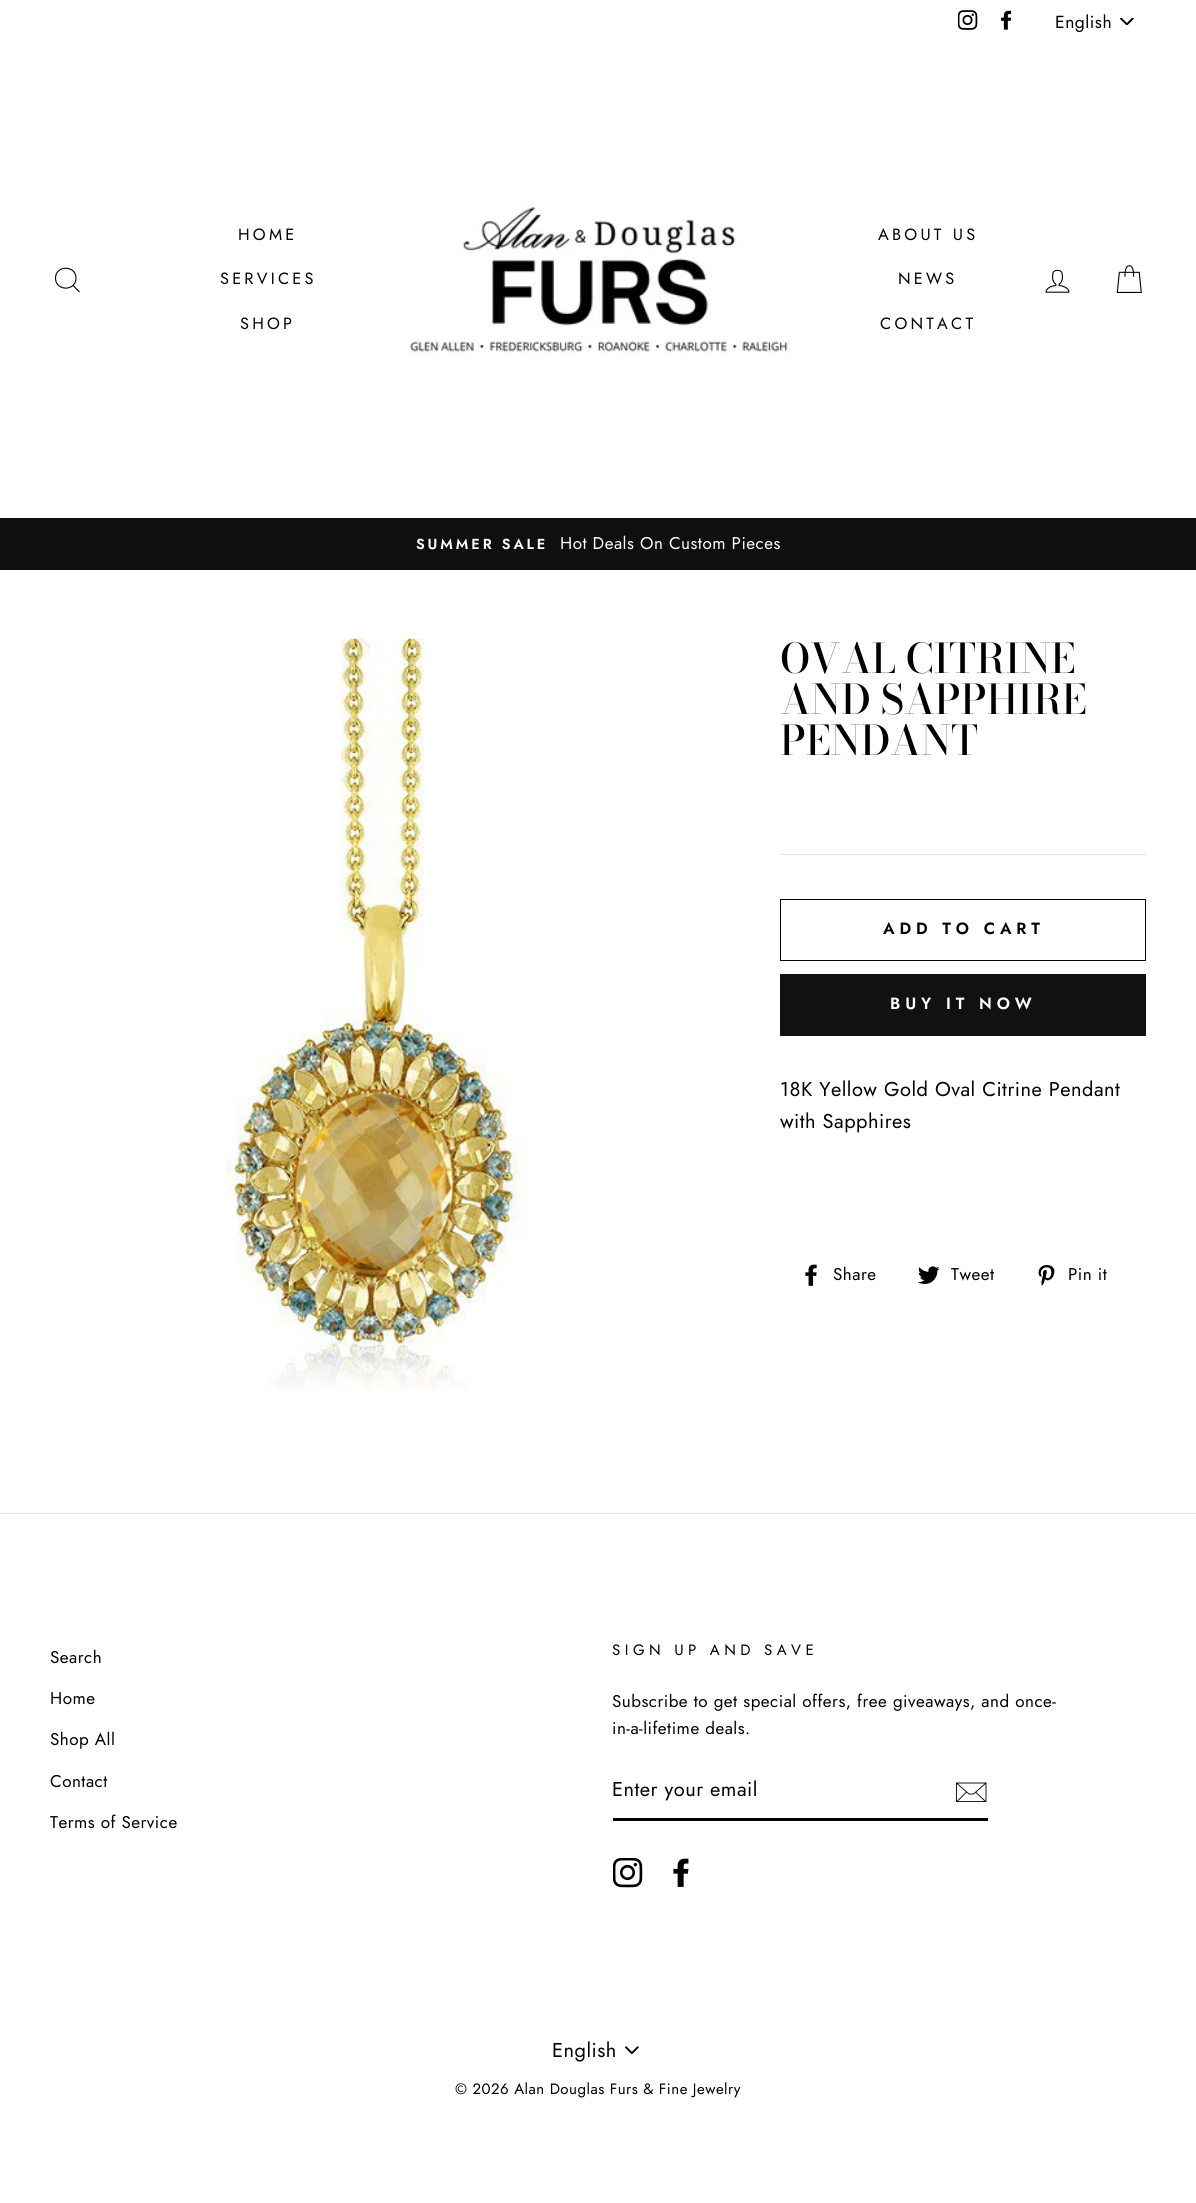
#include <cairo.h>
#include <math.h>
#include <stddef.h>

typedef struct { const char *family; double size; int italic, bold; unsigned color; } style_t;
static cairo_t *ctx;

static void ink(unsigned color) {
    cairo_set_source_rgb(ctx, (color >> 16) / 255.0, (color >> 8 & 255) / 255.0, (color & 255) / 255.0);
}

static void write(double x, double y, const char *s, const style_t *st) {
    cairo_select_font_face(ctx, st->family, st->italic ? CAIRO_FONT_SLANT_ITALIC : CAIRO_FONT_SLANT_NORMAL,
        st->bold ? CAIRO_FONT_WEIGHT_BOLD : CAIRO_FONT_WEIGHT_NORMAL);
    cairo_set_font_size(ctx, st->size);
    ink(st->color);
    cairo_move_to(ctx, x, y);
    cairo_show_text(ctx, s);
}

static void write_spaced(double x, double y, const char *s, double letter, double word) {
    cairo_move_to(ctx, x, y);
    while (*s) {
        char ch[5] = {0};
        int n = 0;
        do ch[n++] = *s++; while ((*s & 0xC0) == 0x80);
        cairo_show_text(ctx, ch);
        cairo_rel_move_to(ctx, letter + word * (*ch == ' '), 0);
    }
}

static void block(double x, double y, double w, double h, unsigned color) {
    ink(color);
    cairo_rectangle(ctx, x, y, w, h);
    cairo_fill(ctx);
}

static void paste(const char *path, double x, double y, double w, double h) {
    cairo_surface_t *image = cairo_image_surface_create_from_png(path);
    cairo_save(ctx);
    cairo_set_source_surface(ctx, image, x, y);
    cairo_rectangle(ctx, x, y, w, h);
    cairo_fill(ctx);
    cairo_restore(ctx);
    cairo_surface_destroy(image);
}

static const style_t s1 = {"Bodoni Moda Medium", 40.75, 0, 0, 0x000000};

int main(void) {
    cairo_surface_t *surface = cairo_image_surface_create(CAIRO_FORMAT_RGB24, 1196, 2203);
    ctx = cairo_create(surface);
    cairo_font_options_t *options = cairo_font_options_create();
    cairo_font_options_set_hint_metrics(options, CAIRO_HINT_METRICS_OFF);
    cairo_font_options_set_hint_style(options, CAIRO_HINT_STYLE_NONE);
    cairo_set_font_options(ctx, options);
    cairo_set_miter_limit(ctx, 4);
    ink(0xffffff);
    cairo_paint(ctx);
    paste("pic1.png", 958, 10, 20, 20);
    paste("pic2.png", 1001, 10, 11, 20);
    paste("pic3.png", 1120, 18, 14, 7);
    cairo_select_font_face(ctx, "Jost", CAIRO_FONT_SLANT_NORMAL, CAIRO_FONT_WEIGHT_NORMAL);
    cairo_set_font_size(ctx, 17.5);
    ink(0x000000);
    write_spaced(1055, 28, "English", 0.5, 0);
    cairo_new_path(ctx);
    cairo_move_to(ctx, 76, 278);
    cairo_curve_to(ctx, 76, 291.5, 55.5, 291.5, 55.5, 278);
    cairo_curve_to(ctx, 55.5, 265, 76, 265, 76, 278);
    cairo_close_path(ctx);
    cairo_move_to(ctx, 79.5, 292);
    cairo_line_to(ctx, 73, 285.5);
    cairo_set_line_width(ctx, 1.1);
    cairo_stroke(ctx);
    cairo_set_font_size(ctx, 16.25);
    write_spaced(238, 240, "HOME", 3.25, 0);
    write_spaced(220, 284, "SERVICES", 3.25, 0);
    write_spaced(240, 329, "SHOP", 3.25, 0);
    paste("pic4.png", 409, 205, 379, 150);
    write_spaced(878, 240, "ABOUT US", 3.25, 0);
    write_spaced(898, 284, "NEWS", 3.25, 0);
    write_spaced(880, 329, "CONTACT", 3.25, 0);
    paste("pic5.png", 1045, 269, 25, 24);
    paste("pic6.png", 1116, 265, 26, 28);
    block(0, 518, 1196, 52, 0x0f0f0f);
    cairo_select_font_face(ctx, "Jost SemiBold", CAIRO_FONT_SLANT_NORMAL, CAIRO_FONT_WEIGHT_NORMAL);
    cairo_set_font_size(ctx, 14.5);
    ink(0xffffff);
    write_spaced(416, 549, "SUMMER SALE", 2.9, 0);
    cairo_select_font_face(ctx, "Jost", CAIRO_FONT_SLANT_NORMAL, CAIRO_FONT_WEIGHT_NORMAL);
    cairo_set_font_size(ctx, 17);
    write_spaced(560, 549, "Hot Deals On Custom Pieces", 0.5, 0);
    paste("pic7.png", 217, 638, 311, 754);
    write(780, 673, "OVAL CITRINE", &s1);
    write(780, 714, "AND SAPPHIRE", &s1);
    write(780, 755, "PENDANT", &s1);
    block(780, 854, 366, 1, 0xe8e8e1);
    cairo_rectangle(ctx, 780.5, 899.5, 365, 61);
    ink(0x000000);
    cairo_set_line_width(ctx, 1);
    cairo_stroke(ctx);
    cairo_select_font_face(ctx, "Jost SemiBold", CAIRO_FONT_SLANT_NORMAL, CAIRO_FONT_WEIGHT_NORMAL);
    cairo_set_font_size(ctx, 16.25);
    write_spaced(883, 934, "ADD TO CART", 4.9, 0);
    block(780, 974, 366, 62, 0x111111);
    ink(0xffffff);
    write_spaced(890, 1009, "BUY IT NOW", 4.9, 0);
    cairo_select_font_face(ctx, "Jost", CAIRO_FONT_SLANT_NORMAL, CAIRO_FONT_WEIGHT_NORMAL);
    cairo_set_font_size(ctx, 20);
    ink(0x000000);
    write_spaced(780, 1096, "18K Yellow Gold Oval Citrine Pendant", 0.5, 0);
    write_spaced(780, 1128, "with Sapphires", 0.5, 0);
    paste("pic8.png", 805, 1264, 12, 22);
    cairo_set_font_size(ctx, 17);
    write_spaced(833, 1280, "Share", 0.5, 0);
    paste("pic9.png", 918, 1266, 22, 18);
    write_spaced(951, 1280, "Tweet", 0.5, 0);
    paste("pic10.png", 1038, 1265, 17, 21);
    write_spaced(1068, 1280, "Pin it", 0.5, 0);
    block(0, 1513, 1196, 1, 0xe8e8e1);
    ink(0x000000);
    write_spaced(50, 1663, "Search", 0.5, 0);
    write_spaced(50, 1704, "Home", 0.5, 0);
    write_spaced(50, 1745, "Shop All", 0.5, 0);
    write_spaced(50, 1787, "Contact", 0.5, 0);
    write_spaced(50, 1828, "Terms of Service", 0.5, 0);
    cairo_set_font_size(ctx, 15);
    write_spaced(612, 1655, "SIGN UP AND SAVE", 4.5, 0);
    cairo_set_font_size(ctx, 17);
    write_spaced(612, 1707, "Subscribe to get special offers, free giveaways, and once-", 0.5, 0);
    write_spaced(612, 1734, "in-a-lifetime deals.", 0.5, 0);
    block(613, 1818, 375, 3, 0x000000);
    cairo_set_font_size(ctx, 20);
    write_spaced(612, 1796, "Enter your email", 0.5, 0);
    cairo_new_path(ctx);
    cairo_move_to(ctx, 986, 1801.5);
    cairo_line_to(ctx, 956.5, 1801.5);
    cairo_line_to(ctx, 956.5, 1783);
    cairo_line_to(ctx, 986, 1783);
    cairo_close_path(ctx);
    cairo_move_to(ctx, 956.5, 1783);
    cairo_line_to(ctx, 969, 1794);
    cairo_line_to(ctx, 973.5, 1794);
    cairo_line_to(ctx, 986, 1783);
    cairo_move_to(ctx, 966.5, 1792);
    cairo_line_to(ctx, 957, 1801.5);
    cairo_move_to(ctx, 985.5, 1801.5);
    cairo_line_to(ctx, 975.5, 1792);
    cairo_set_line_width(ctx, 0.9);
    cairo_stroke(ctx);
    paste("pic11.png", 613, 1858, 30, 30);
    paste("pic12.png", 673, 1858, 16, 29);
    paste("pic13.png", 625, 2046, 14, 8);
    write_spaced(552, 2057, "English", 0.5, 0);
    cairo_set_font_size(ctx, 15);
    write_spaced(455, 2094, "© 2026 Alan Douglas Furs & Fine Jewelry", 0.5, 0);
    cairo_surface_write_to_png(surface, "screenshot.png");
    cairo_font_options_destroy(options);
    cairo_destroy(ctx);
    cairo_surface_destroy(surface);
    return 0;
}
